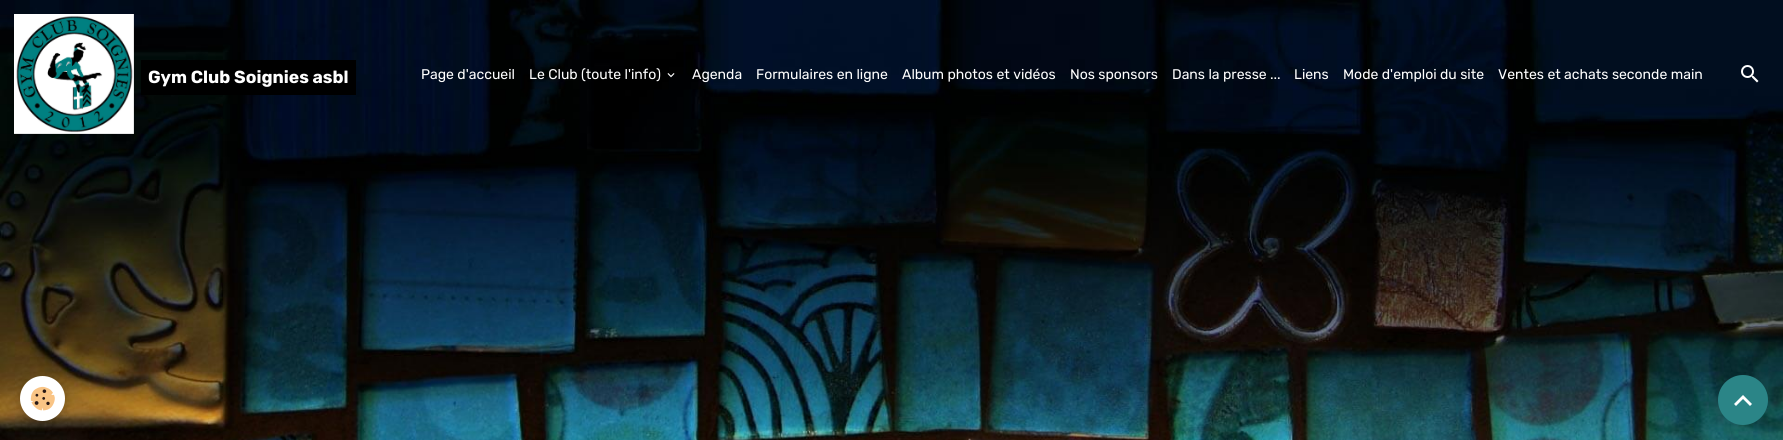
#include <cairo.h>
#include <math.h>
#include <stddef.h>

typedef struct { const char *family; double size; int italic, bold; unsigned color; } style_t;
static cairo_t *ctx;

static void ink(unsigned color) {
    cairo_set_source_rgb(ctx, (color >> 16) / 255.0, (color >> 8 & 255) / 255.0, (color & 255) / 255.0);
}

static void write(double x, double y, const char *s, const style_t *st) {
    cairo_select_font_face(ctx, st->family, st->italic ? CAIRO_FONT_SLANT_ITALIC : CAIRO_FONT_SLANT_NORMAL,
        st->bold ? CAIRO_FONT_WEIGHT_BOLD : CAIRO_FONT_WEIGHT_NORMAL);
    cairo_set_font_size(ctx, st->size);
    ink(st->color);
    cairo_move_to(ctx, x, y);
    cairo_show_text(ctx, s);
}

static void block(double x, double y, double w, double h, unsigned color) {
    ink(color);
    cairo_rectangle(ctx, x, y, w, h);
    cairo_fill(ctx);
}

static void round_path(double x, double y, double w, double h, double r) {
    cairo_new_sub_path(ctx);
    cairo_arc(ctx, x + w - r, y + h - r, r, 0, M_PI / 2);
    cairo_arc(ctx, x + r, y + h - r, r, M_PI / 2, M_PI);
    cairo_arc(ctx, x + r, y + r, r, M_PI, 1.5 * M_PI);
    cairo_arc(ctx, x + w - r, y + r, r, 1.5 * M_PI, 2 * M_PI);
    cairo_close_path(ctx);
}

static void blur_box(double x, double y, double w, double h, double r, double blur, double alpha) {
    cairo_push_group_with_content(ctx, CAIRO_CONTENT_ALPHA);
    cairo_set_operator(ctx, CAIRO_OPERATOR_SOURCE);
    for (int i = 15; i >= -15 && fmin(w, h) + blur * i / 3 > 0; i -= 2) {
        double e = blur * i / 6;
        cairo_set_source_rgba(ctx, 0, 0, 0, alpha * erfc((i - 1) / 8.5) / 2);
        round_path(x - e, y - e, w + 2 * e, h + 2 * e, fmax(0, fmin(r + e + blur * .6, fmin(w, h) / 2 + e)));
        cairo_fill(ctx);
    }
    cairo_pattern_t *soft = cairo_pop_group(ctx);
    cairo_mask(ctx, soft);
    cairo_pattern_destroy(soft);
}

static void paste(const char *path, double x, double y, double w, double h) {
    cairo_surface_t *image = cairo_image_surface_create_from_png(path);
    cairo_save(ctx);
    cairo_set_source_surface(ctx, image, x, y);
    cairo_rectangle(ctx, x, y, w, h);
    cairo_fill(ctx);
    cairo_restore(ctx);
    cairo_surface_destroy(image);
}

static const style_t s1 = {"Rubik", 17.5, 0, 1, 0xffffff};
static const style_t s2 = {"Rubik", 14, 0, 0, 0xffffff};

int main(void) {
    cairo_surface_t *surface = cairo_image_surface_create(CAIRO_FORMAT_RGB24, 1783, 440);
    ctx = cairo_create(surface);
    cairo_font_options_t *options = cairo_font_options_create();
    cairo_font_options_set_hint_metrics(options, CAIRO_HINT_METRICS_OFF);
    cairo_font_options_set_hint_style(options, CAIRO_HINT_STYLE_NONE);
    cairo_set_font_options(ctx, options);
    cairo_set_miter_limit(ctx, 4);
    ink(0xffffff);
    cairo_paint(ctx);
    paste("pic1.png", 0, 0, 1783, 440);
    paste("pic2.png", 14, 14, 120, 120);
    block(141, 60, 215, 35, 0x000000);
    write(148, 83, "Gym Club Soignies asbl", &s1);
    write(421, 79, "Page d'accueil", &s2);
    write(529, 79, "Le Club (toute l'info)", &s2);
    paste("pic3.png", 667, 73, 8, 5);
    write(692, 79, "Agenda", &s2);
    write(756, 79, "Formulaires en ligne", &s2);
    write(902, 79, "Album photos et vidéos", &s2);
    write(1070, 79, "Nos sponsors", &s2);
    write(1172, 79, "Dans la presse ...", &s2);
    write(1294, 79, "Liens", &s2);
    write(1343, 79, "Mode d'emploi du site", &s2);
    write(1498, 79, "Ventes et achats seconde main", &s2);
    paste("pic4.png", 1741, 65, 18, 18);
    ink(0x000000);
    blur_box(20, 379, 45, 45, 22.5, 5, 0.24);
    ink(0xffffff);
    cairo_arc(ctx, 42.5, 398.5, 22.5, 0, 2 * M_PI);
    cairo_fill(ctx);
    paste("pic5.png", 30, 386, 25, 25);
    ink(0x2b8587);
    cairo_arc(ctx, 1743, 400, 25, 0, 2 * M_PI);
    cairo_fill(ctx);
    ink(0xffffff);
    cairo_new_path(ctx);
    cairo_move_to(ctx, 1743, 395);
    cairo_line_to(ctx, 1752, 404);
    cairo_line_to(ctx, 1750, 406);
    cairo_line_to(ctx, 1743, 399);
    cairo_line_to(ctx, 1736, 406);
    cairo_line_to(ctx, 1734, 404);
    cairo_close_path(ctx);
    cairo_fill(ctx);
    cairo_surface_write_to_png(surface, "screenshot.png");
    cairo_font_options_destroy(options);
    cairo_destroy(ctx);
    cairo_surface_destroy(surface);
    return 0;
}
